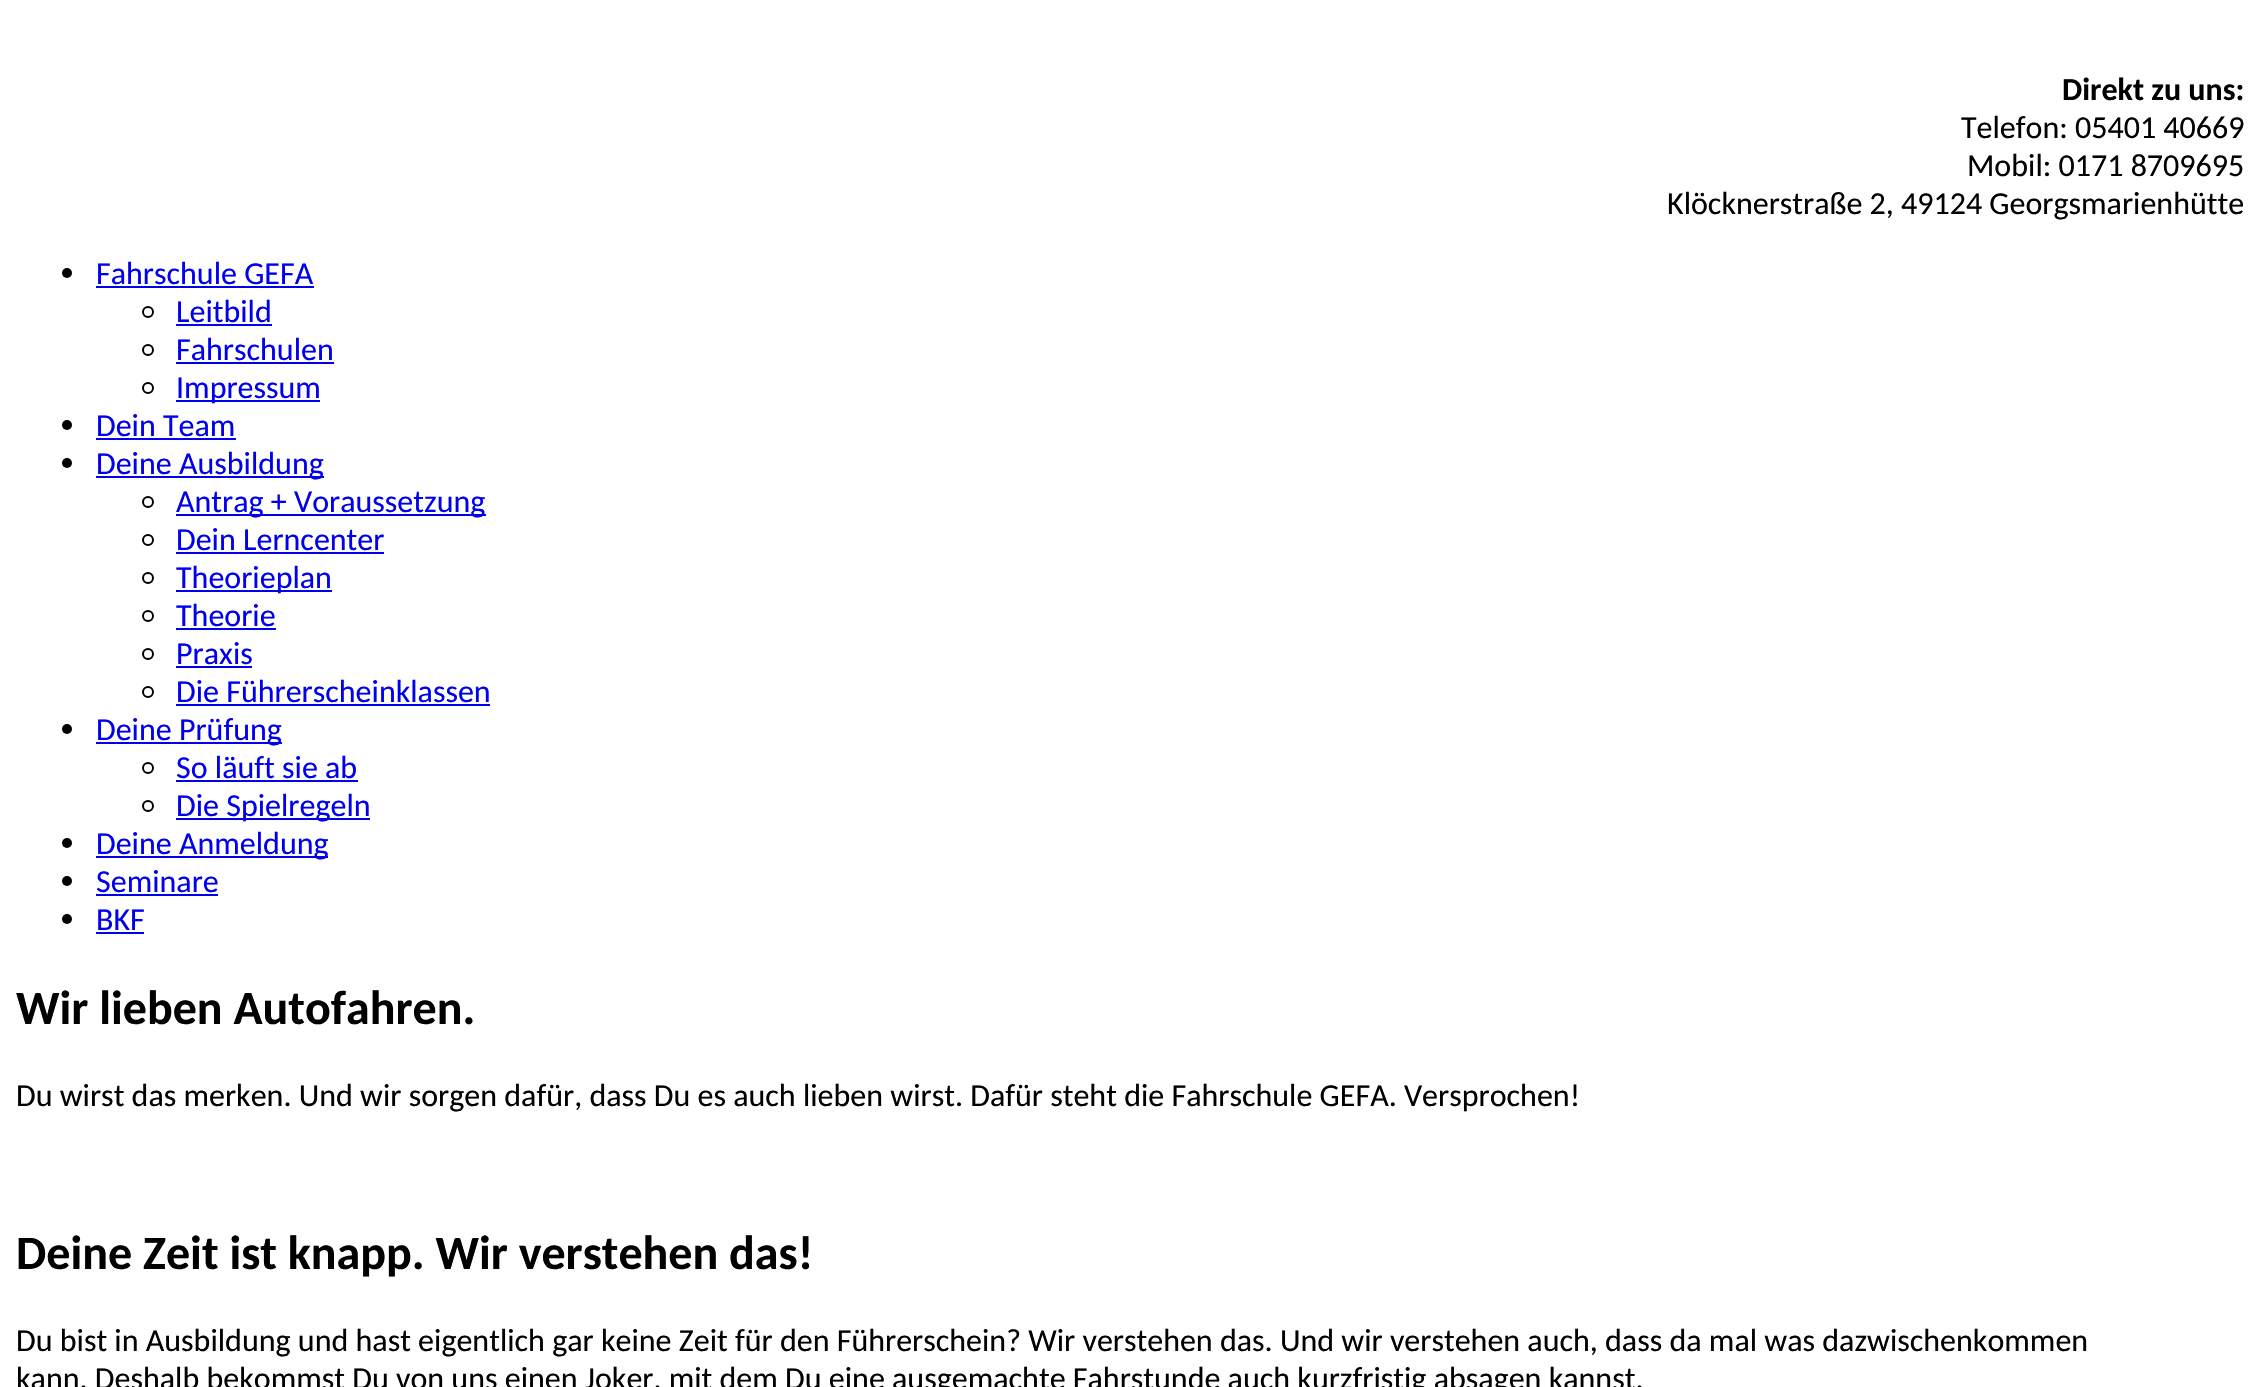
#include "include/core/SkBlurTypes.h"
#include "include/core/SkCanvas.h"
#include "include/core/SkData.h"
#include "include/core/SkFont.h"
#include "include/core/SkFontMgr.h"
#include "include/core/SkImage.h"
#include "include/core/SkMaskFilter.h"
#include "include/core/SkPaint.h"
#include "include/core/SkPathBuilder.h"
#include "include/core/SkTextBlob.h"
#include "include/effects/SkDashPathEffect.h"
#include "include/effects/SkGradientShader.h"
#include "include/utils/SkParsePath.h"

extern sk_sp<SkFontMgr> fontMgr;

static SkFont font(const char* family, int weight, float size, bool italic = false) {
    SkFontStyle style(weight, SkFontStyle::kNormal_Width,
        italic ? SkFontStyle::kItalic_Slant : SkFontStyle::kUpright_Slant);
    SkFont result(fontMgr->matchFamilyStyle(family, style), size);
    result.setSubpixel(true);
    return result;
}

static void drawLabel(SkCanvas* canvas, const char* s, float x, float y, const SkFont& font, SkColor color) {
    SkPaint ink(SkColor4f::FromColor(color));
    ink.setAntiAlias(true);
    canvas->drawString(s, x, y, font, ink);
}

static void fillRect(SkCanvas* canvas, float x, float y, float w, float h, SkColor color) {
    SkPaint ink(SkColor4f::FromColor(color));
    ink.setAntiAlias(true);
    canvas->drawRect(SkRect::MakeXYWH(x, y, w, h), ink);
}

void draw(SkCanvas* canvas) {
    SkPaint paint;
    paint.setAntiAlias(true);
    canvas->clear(0xFFFFFFFF);
    SkFont font1 = font("Carlito", 700, 32);
    drawLabel(canvas, "Direkt zu uns:", 2062, 100, font1, 0xFF000000);
    SkFont font2 = font("Carlito", 400, 32);
    drawLabel(canvas, "Telefon: 05401 40669", 1961, 138, font2, 0xFF000000);
    drawLabel(canvas, "Mobil: 0171 8709695", 1967, 176, font2, 0xFF000000);
    drawLabel(canvas, "Klöcknerstraße 2, 49124 Georgsmarienhütte", 1667, 214, font2, 0xFF000000);
    paint.setColor(0xFF000000);
    canvas->drawCircle(67, 273, 5, paint);
    drawLabel(canvas, "Fahrschule GEFA", 96, 284, font2, 0xFF0000EE);
    fillRect(canvas, 96, 286, 218, 2, 0xFF0000EE);
    paint.setStroke(true);
    paint.setStrokeWidth(2);
    canvas->drawCircle(148, 312, 5, paint);
    drawLabel(canvas, "Leitbild", 176, 322, font2, 0xFF0000EE);
    fillRect(canvas, 176, 324, 96, 2, 0xFF0000EE);
    canvas->drawCircle(148, 350, 5, paint);
    drawLabel(canvas, "Fahrschulen", 176, 360, font2, 0xFF0000EE);
    fillRect(canvas, 176, 362, 158, 2, 0xFF0000EE);
    canvas->drawCircle(148, 388, 5, paint);
    fillRect(canvas, 176, 400, 144, 2, 0xFF0000EE);
    drawLabel(canvas, "Impressum", 176, 398, font2, 0xFF0000EE);
    paint.setStroke(false);
    canvas->drawCircle(67, 425, 5, paint);
    drawLabel(canvas, "Dein Team", 96, 436, font2, 0xFF0000EE);
    fillRect(canvas, 96, 438, 140, 2, 0xFF0000EE);
    canvas->drawCircle(67, 463, 5, paint);
    fillRect(canvas, 96, 476, 228, 2, 0xFF0000EE);
    drawLabel(canvas, "Deine Ausbildung", 96, 474, font2, 0xFF0000EE);
    paint.setStroke(true);
    canvas->drawCircle(148, 502, 5, paint);
    fillRect(canvas, 176, 514, 310, 2, 0xFF0000EE);
    drawLabel(canvas, "Antrag + Voraussetzung", 176, 512, font2, 0xFF0000EE);
    canvas->drawCircle(148, 540, 5, paint);
    drawLabel(canvas, "Dein Lerncenter", 176, 550, font2, 0xFF0000EE);
    fillRect(canvas, 176, 552, 208, 2, 0xFF0000EE);
    canvas->drawCircle(148, 578, 5, paint);
    fillRect(canvas, 176, 590, 156, 2, 0xFF0000EE);
    drawLabel(canvas, "Theorieplan", 176, 588, font2, 0xFF0000EE);
    canvas->drawCircle(148, 616, 5, paint);
    drawLabel(canvas, "Theorie", 176, 626, font2, 0xFF0000EE);
    fillRect(canvas, 176, 628, 100, 2, 0xFF0000EE);
    canvas->drawCircle(148, 654, 5, paint);
    drawLabel(canvas, "Praxis", 176, 664, font2, 0xFF0000EE);
    fillRect(canvas, 176, 666, 76, 2, 0xFF0000EE);
    canvas->drawCircle(148, 692, 5, paint);
    drawLabel(canvas, "Die Führerscheinklassen", 176, 702, font2, 0xFF0000EE);
    fillRect(canvas, 176, 704, 314, 2, 0xFF0000EE);
    paint.setStroke(false);
    canvas->drawCircle(67, 729, 5, paint);
    fillRect(canvas, 96, 742, 186, 2, 0xFF0000EE);
    drawLabel(canvas, "Deine Prüfung", 96, 740, font2, 0xFF0000EE);
    paint.setStroke(true);
    canvas->drawCircle(148, 768, 5, paint);
    drawLabel(canvas, "So läuft sie ab", 176, 778, font2, 0xFF0000EE);
    fillRect(canvas, 176, 780, 182, 2, 0xFF0000EE);
    canvas->drawCircle(148, 806, 5, paint);
    fillRect(canvas, 176, 818, 194, 2, 0xFF0000EE);
    drawLabel(canvas, "Die Spielregeln", 176, 816, font2, 0xFF0000EE);
    paint.setStroke(false);
    canvas->drawCircle(67, 843, 5, paint);
    fillRect(canvas, 96, 856, 232, 2, 0xFF0000EE);
    drawLabel(canvas, "Deine Anmeldung", 96, 854, font2, 0xFF0000EE);
    canvas->drawCircle(67, 881, 5, paint);
    drawLabel(canvas, "Seminare", 96, 892, font2, 0xFF0000EE);
    fillRect(canvas, 96, 894, 122, 2, 0xFF0000EE);
    canvas->drawCircle(67, 919, 5, paint);
    drawLabel(canvas, "BKF", 96, 930, font2, 0xFF0000EE);
    fillRect(canvas, 96, 932, 48, 2, 0xFF0000EE);
    SkFont font3 = font("Carlito", 700, 48);
    drawLabel(canvas, "Wir lieben Autofahren.", 16, 1024, font3, 0xFF000000);
    drawLabel(canvas, "Du wirst das merken. Und wir sorgen dafür, dass Du es auch lieben wirst. Dafür steht die Fahrschule GEFA. Versprochen!", 16, 1106, font2, 0xFF000000);
    drawLabel(canvas, "Deine Zeit ist knapp. Wir verstehen das!", 16, 1269, font3, 0xFF000000);
    drawLabel(canvas, "Du bist in Ausbildung und hast eigentlich gar keine Zeit für den Führerschein? Wir verstehen das. Und wir verstehen auch, dass da mal was dazwischenkommen", 16, 1351, font2, 0xFF000000);
    drawLabel(canvas, "kann. Deshalb bekommst Du von uns einen Joker, mit dem Du eine ausgemachte Fahrstunde auch kurzfristig absagen kannst.", 16, 1389, font2, 0xFF000000);
}
